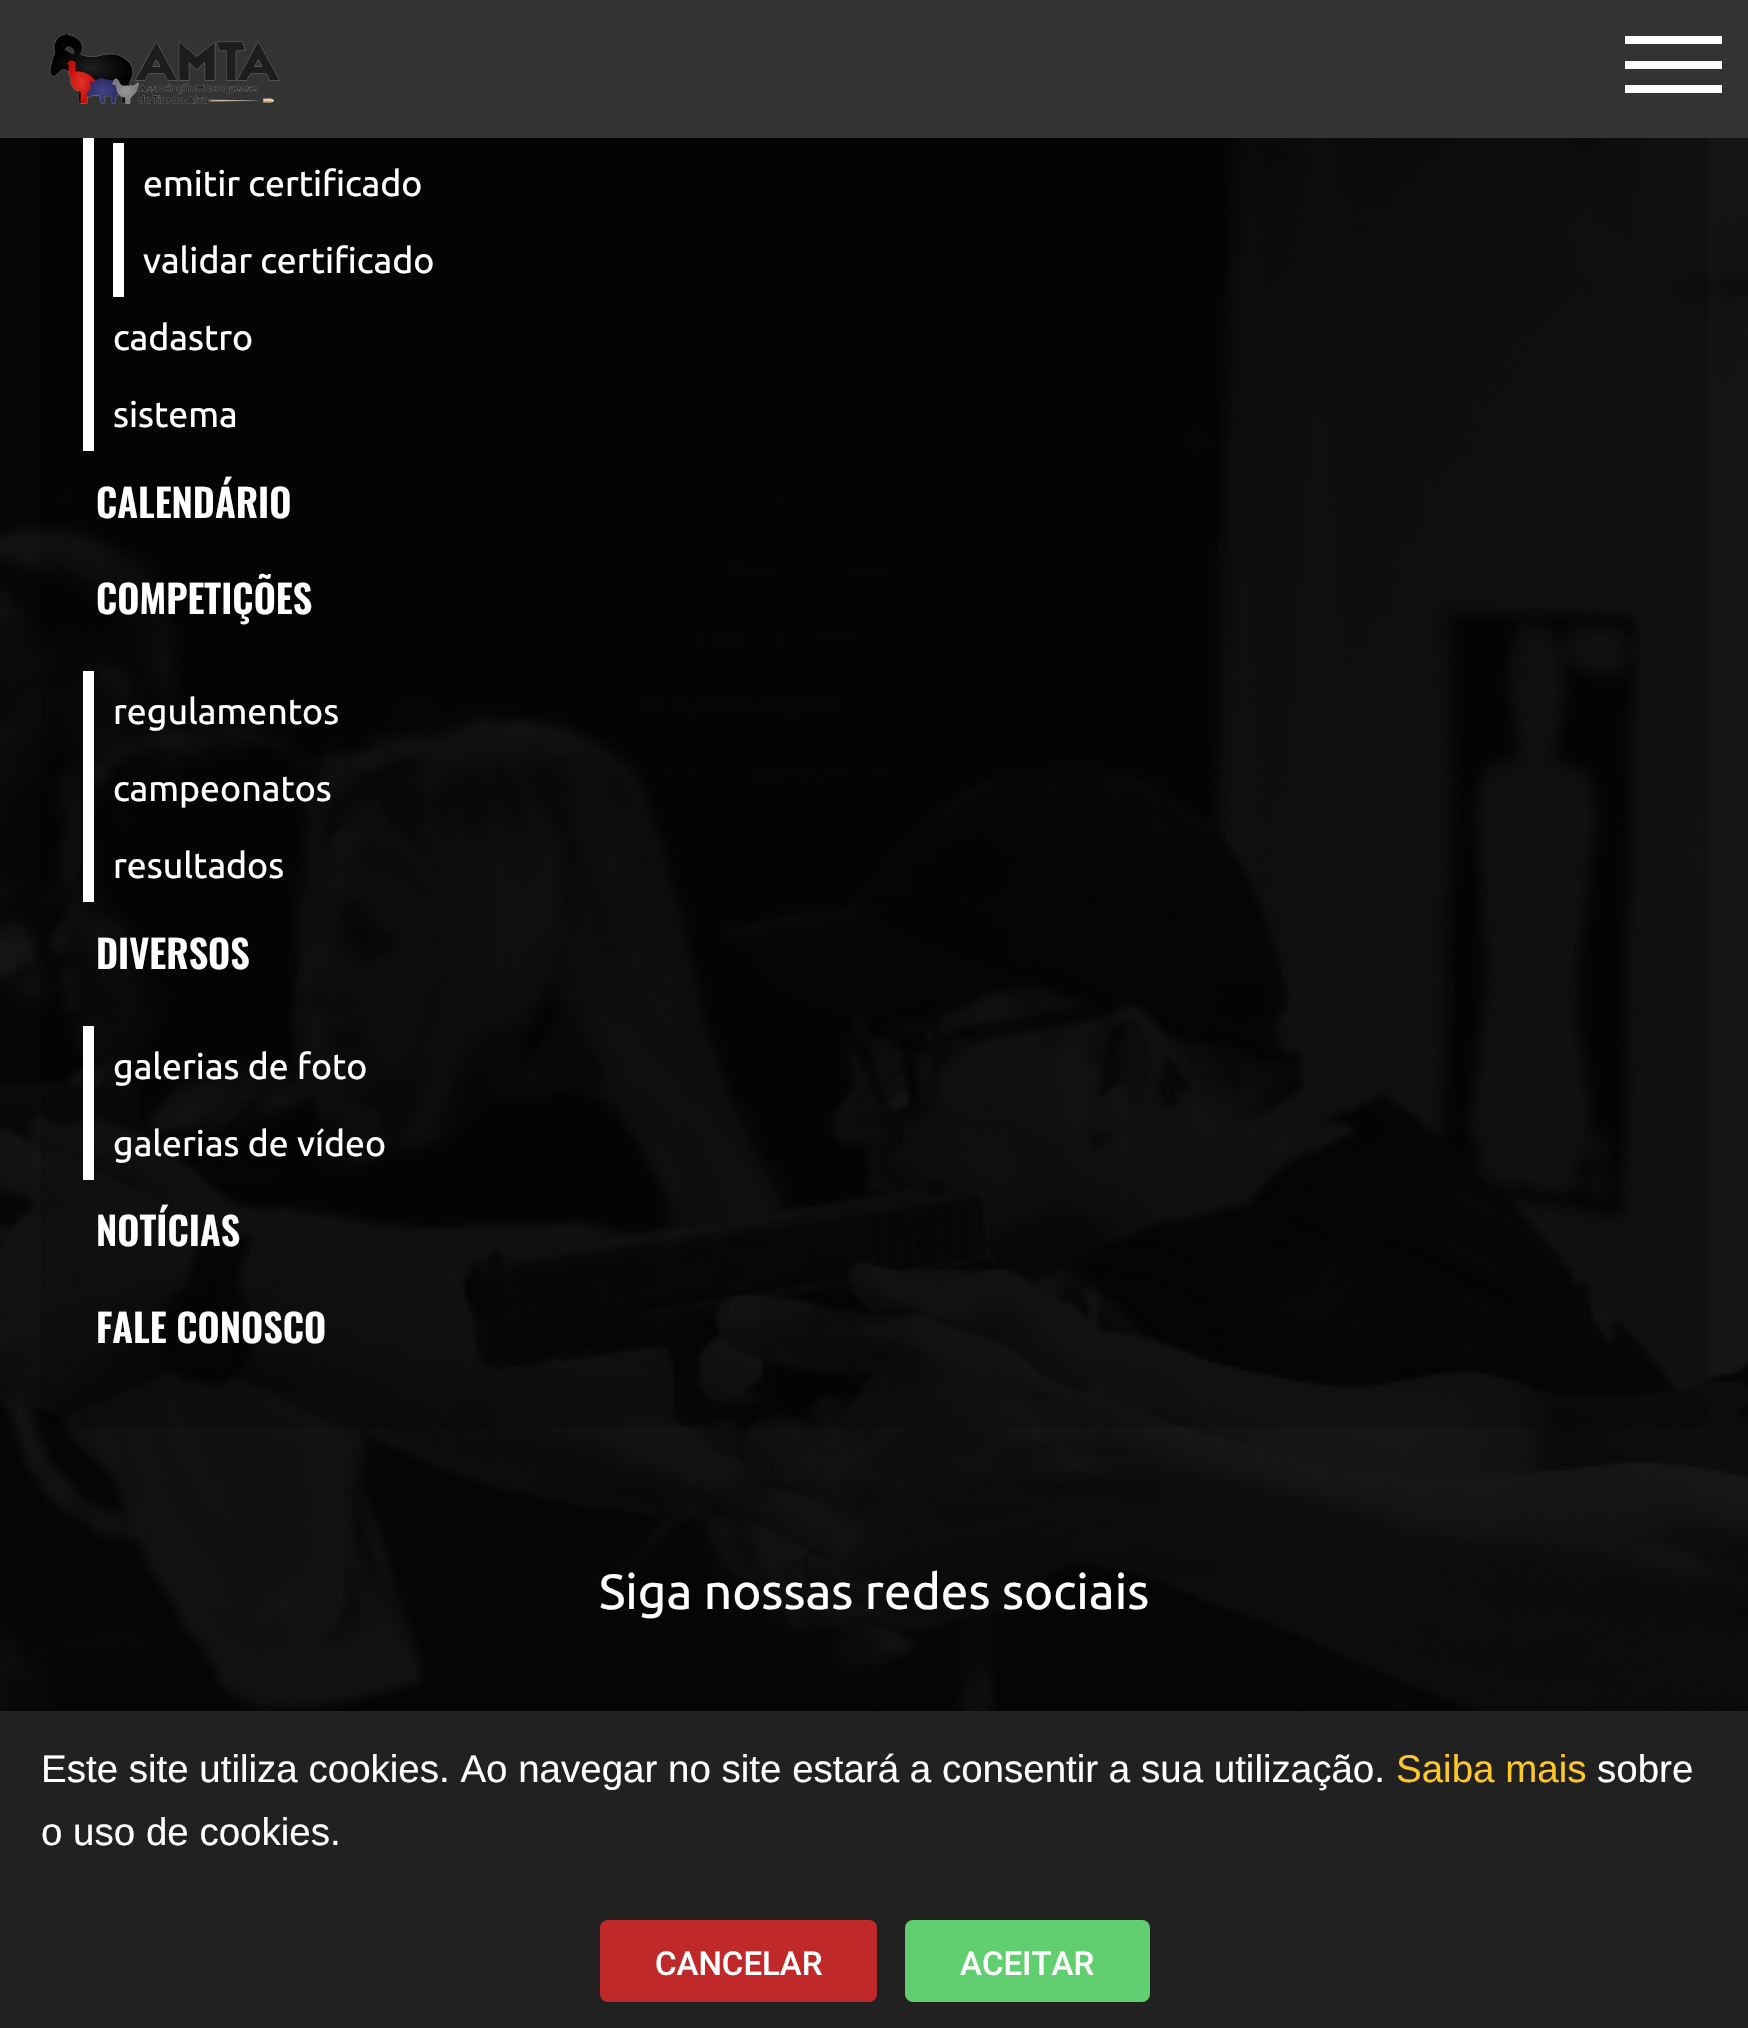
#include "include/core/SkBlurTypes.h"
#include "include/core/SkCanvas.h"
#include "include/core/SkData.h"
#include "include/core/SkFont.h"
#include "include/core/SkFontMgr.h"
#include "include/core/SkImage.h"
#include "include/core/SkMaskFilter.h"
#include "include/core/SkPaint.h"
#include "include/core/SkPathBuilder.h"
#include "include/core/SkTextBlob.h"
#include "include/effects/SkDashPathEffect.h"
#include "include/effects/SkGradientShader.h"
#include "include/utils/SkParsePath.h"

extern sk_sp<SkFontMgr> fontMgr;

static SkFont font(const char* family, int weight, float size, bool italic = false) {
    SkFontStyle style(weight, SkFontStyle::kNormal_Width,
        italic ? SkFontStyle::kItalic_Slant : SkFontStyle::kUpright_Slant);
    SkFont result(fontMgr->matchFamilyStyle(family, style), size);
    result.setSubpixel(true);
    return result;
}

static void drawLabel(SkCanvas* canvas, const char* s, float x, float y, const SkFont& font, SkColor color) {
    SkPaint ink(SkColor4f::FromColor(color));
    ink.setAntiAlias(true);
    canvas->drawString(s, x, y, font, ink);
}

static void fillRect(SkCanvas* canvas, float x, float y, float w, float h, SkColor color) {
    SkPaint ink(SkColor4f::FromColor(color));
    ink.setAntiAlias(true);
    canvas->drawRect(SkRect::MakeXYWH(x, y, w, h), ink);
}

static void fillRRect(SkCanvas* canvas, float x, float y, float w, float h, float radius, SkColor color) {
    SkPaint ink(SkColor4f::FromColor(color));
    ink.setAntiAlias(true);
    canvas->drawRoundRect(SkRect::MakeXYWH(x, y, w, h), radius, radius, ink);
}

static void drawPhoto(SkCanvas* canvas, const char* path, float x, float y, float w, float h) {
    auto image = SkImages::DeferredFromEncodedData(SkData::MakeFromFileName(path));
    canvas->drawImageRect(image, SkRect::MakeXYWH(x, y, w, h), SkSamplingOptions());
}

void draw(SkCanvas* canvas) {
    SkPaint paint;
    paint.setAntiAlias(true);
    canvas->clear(0xFF050505);
    fillRect(canvas, 0, 0, 1748, 138, 0xFF333333);
    drawPhoto(canvas, "assets/img1.png", 50, 34, 230, 70);
    fillRect(canvas, 1625, 61, 97, 8, 0xFFFFFFFF);
    fillRect(canvas, 1625, 36, 97, 8, 0xFFFFFFFF);
    fillRect(canvas, 1625, 85, 97, 8, 0xFFFFFFFF);
    drawPhoto(canvas, "assets/img2.png", 0, 138, 1748, 1573);
    fillRect(canvas, 41, 138, 1667, 1289, 0x33000000);
    fillRect(canvas, 83, 138, 11, 313, 0xFFFFFFFF);
    fillRect(canvas, 113, 143, 11, 154, 0xFFFFFFFF);
    SkFont font1 = font("Ubuntu", 400, 35.75f);
    drawLabel(canvas, "emitir certificado", 143, 196, font1, 0xFFFFFFFF);
    drawLabel(canvas, "validar certificado", 143, 273, font1, 0xFFFFFFFF);
    drawLabel(canvas, "cadastro", 113, 350, font1, 0xFFFFFFFF);
    drawLabel(canvas, "sistema", 113, 427, font1, 0xFFFFFFFF);
    SkFont font2 = font("Oswald", 600, 38.5f);
    drawLabel(canvas, "CALENDÁRIO", 96, 518, font2, 0xFFFFFFFF);
    drawLabel(canvas, "COMPETIÇÕES", 96, 614, font2, 0xFFFFFFFF);
    fillRect(canvas, 83, 671, 11, 231, 0xFFFFFFFF);
    drawLabel(canvas, "regulamentos", 113, 724, font1, 0xFFFFFFFF);
    drawLabel(canvas, "campeonatos", 113, 801, font1, 0xFFFFFFFF);
    drawLabel(canvas, "resultados", 113, 878, font1, 0xFFFFFFFF);
    drawLabel(canvas, "DIVERSOS", 96, 969, font2, 0xFFFFFFFF);
    fillRect(canvas, 83, 1026, 11, 154, 0xFFFFFFFF);
    drawLabel(canvas, "galerias de foto", 113, 1079, font1, 0xFFFFFFFF);
    drawLabel(canvas, "galerias de vídeo", 113, 1156, font1, 0xFFFFFFFF);
    drawLabel(canvas, "NOTÍCIAS", 96, 1246, font2, 0xFFFFFFFF);
    drawLabel(canvas, "FALE CONOSCO", 96, 1343, font2, 0xFFFFFFFF);
    SkFont font3 = font("Ubuntu", 400, 49.5f);
    drawLabel(canvas, "Siga nossas redes sociais", 599, 1609, font3, 0xFFFFFFFF);
    fillRect(canvas, 0, 1711, 1748, 317, 0xFF212121);
    SkFont font4 = font("Liberation Sans", 400, 38.5f);
    drawLabel(canvas, "Este site utiliza cookies. Ao navegar no site estará a consentir a sua utilização.", 41, 1782, font4, 0xFFFFFFFF);
    drawLabel(canvas, "Saiba mais", 1396, 1782, font4, 0xFFFEC726);
    drawLabel(canvas, "sobre", 1597, 1782, font4, 0xFFFFFFFF);
    drawLabel(canvas, "o uso de cookies.", 41, 1845, font4, 0xFFFFFFFF);
    fillRRect(canvas, 600, 1920, 277, 82, 8, 0xFFBF2929);
    SkFont font5 = font("Roboto", 500, 33);
    drawLabel(canvas, "CANCELAR", 655, 1975, font5, 0xFFFFFFFF);
    fillRRect(canvas, 905, 1920, 245, 82, 8, 0xFF61CE70);
    drawLabel(canvas, "ACEITAR", 960, 1975, font5, 0xFFFFFFFF);
}
